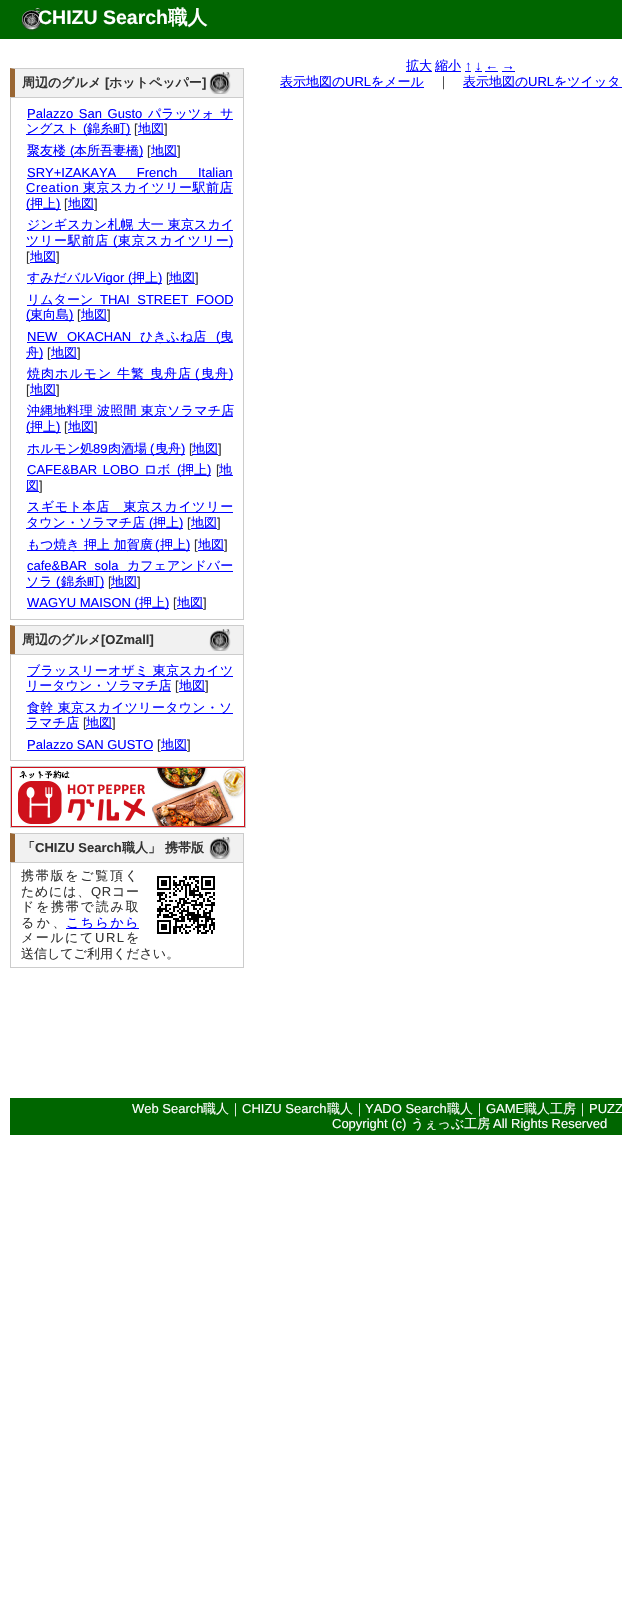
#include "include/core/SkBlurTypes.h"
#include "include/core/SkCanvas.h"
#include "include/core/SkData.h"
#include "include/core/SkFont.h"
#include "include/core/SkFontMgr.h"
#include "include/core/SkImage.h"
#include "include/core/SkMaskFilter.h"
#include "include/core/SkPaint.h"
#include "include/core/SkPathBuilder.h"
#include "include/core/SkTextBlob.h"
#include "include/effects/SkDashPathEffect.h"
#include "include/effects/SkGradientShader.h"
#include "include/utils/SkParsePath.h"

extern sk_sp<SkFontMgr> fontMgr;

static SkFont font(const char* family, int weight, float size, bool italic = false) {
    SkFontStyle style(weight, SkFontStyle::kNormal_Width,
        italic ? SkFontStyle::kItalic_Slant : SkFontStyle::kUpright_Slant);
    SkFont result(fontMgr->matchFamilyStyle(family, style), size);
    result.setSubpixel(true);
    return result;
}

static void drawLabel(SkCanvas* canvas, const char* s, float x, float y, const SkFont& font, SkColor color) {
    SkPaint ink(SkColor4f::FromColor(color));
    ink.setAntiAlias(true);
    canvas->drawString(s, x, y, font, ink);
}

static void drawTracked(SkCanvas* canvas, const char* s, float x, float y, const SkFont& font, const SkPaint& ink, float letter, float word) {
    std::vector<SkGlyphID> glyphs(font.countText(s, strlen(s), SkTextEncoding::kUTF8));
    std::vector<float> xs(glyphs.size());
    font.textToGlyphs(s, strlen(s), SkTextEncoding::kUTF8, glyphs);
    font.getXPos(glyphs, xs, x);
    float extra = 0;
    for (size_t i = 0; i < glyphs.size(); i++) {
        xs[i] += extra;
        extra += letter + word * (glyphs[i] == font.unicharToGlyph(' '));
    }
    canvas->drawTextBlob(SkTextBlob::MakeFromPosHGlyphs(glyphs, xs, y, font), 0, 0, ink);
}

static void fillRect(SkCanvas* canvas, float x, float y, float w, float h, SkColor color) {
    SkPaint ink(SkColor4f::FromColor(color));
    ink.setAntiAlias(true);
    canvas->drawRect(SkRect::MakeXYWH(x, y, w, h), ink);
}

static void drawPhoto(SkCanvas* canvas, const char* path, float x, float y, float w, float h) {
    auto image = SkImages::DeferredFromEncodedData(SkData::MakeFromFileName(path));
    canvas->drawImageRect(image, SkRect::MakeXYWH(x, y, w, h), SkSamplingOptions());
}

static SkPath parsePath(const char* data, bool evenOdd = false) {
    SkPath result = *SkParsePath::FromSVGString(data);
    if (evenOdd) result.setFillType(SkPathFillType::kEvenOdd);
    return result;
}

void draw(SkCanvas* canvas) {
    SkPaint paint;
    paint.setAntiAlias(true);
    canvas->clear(0xFFFFFFFF);
    fillRect(canvas, 0, 0, 622, 39, 0xFF006600);
    drawPhoto(canvas, "assets/img1.png", 21, 8, 21, 24);
    SkFont font1 = font("Liberation Sans", 700, 19.5f);
    drawLabel(canvas, "CHIZU Search", 38, 24, font1, 0xFFFFFFFF);
    SkFont font2 = font("WenQuanYi Zen Hei", 700, 19.5f);
    drawLabel(canvas, "職人", 168, 24, font2, 0xFFFFFFFF);
    fillRect(canvas, 10, 68, 233, 29, 0xFFF1F1F1);
    paint.setColor(0xFFCCCCCC);
    canvas->drawPath(parsePath("M10 68H244L243 69H15Z"), paint);
    fillRect(canvas, 243, 68, 1, 29, 0xFFCCCCCC);
    paint.setColor(0xFF996633);
    canvas->drawPath(parsePath("M10 97V68L15 69V97Z"), paint);
    drawPhoto(canvas, "assets/img2.png", 209, 72, 22, 22);
    SkFont font3 = font("WenQuanYi Zen Hei", 700, 13);
    drawLabel(canvas, "周辺のグルメ", 22, 87, font3, 0xFF333333);
    SkFont font4 = font("Liberation Sans", 700, 13);
    drawLabel(canvas, "[", 105, 87, font4, 0xFF333333);
    drawLabel(canvas, "ホットペッパー", 109, 87, font3, 0xFF333333);
    drawLabel(canvas, "]", 202, 87, font4, 0xFF333333);
    paint.setStroke(true);
    paint.setStrokeWidth(1);
    paint.setColor(0xFFCCCCCC);
    canvas->drawRect(SkRect::MakeXYWH(10.5f, 97.5f, 233, 522), paint);
    SkFont font5 = font("Liberation Sans", 400, 13);
    paint.setStroke(false);
    paint.setColor(0xFF0000FF);
    drawTracked(canvas, "Palazzo San Gusto", 27, 118, font5, paint, 0, 2);
    fillRect(canvas, 27, 119, 206, 1, 0xFF0000FF);
    SkFont font6 = font("WenQuanYi Zen Hei", 500, 13);
    drawLabel(canvas, "パラッツォ", 148, 118, font6, 0xFF0000FF);
    drawLabel(canvas, "サ", 220, 118, font6, 0xFF0000FF);
    fillRect(canvas, 26, 134, 105, 1, 0xFF0000FF);
    drawLabel(canvas, "ングスト", 26, 133, font6, 0xFF0000FF);
    drawLabel(canvas, "(", 83, 133, font5, 0xFF0000FF);
    drawLabel(canvas, "錦糸町", 87, 133, font6, 0xFF0000FF);
    drawLabel(canvas, ")", 126, 133, font5, 0xFF0000FF);
    drawLabel(canvas, "[", 134, 133, font5, 0xFF333333);
    fillRect(canvas, 138, 134, 26, 1, 0xFF0000FF);
    drawLabel(canvas, "地図", 138, 133, font6, 0xFF0000FF);
    drawLabel(canvas, "]", 164, 133, font5, 0xFF333333);
    fillRect(canvas, 27, 156, 116, 1, 0xFF0000FF);
    drawLabel(canvas, "聚友楼", 27, 155, font6, 0xFF0000FF);
    drawLabel(canvas, "(", 70, 155, font5, 0xFF0000FF);
    drawLabel(canvas, "本所吾妻橋", 74, 155, font6, 0xFF0000FF);
    drawLabel(canvas, ")", 139, 155, font5, 0xFF0000FF);
    drawLabel(canvas, "[", 147, 155, font5, 0xFF333333);
    fillRect(canvas, 151, 156, 26, 1, 0xFF0000FF);
    drawLabel(canvas, "地図", 151, 155, font6, 0xFF0000FF);
    drawLabel(canvas, "]", 177, 155, font5, 0xFF333333);
    drawTracked(canvas, "SRY+IZAKAYA French Italian", 27, 177, font5, paint, 0, 17);
    fillRect(canvas, 27, 178, 206, 1, 0xFF0000FF);
    drawTracked(canvas, "Creation", 26, 192, font5, paint, 0.5f, 0);
    fillRect(canvas, 26, 193, 207, 1, 0xFF0000FF);
    drawTracked(canvas, "東京スカイツリー駅前店", 83, 192, font6, paint, 0.5f, 0);
    fillRect(canvas, 26, 209, 35, 1, 0xFF0000FF);
    drawLabel(canvas, "(", 26, 208, font5, 0xFF0000FF);
    drawLabel(canvas, "押上", 30, 208, font6, 0xFF0000FF);
    drawLabel(canvas, ")", 56, 208, font5, 0xFF0000FF);
    drawLabel(canvas, "[", 64, 208, font5, 0xFF333333);
    fillRect(canvas, 68, 209, 26, 1, 0xFF0000FF);
    drawLabel(canvas, "地図", 68, 208, font6, 0xFF0000FF);
    drawLabel(canvas, "]", 94, 208, font5, 0xFF333333);
    fillRect(canvas, 27, 230, 206, 1, 0xFF0000FF);
    drawTracked(canvas, "ジンギスカン札幌 大一 東京スカイ", 27, 229, font6, paint, 0.1f, 0);
    fillRect(canvas, 26, 246, 207, 1, 0xFF0000FF);
    drawTracked(canvas, "ツリー駅前店", 26, 245, font6, paint, 0.75f, 0);
    drawTracked(canvas, "(", 113, 245, font5, paint, 0.75f, 0);
    drawTracked(canvas, "東京スカイツリー", 118, 245, font6, paint, 0.75f, 0);
    drawTracked(canvas, ")", 229, 245, font5, paint, 0.75f, 0);
    drawLabel(canvas, "[", 26, 261, font5, 0xFF333333);
    fillRect(canvas, 30, 262, 26, 1, 0xFF0000FF);
    drawLabel(canvas, "地図", 30, 261, font6, 0xFF0000FF);
    drawLabel(canvas, "]", 56, 261, font5, 0xFF333333);
    fillRect(canvas, 27, 283, 135, 1, 0xFF0000FF);
    drawLabel(canvas, "すみだバル", 27, 282, font6, 0xFF0000FF);
    drawLabel(canvas, "Vigor (", 94, 282, font5, 0xFF0000FF);
    drawLabel(canvas, "押上", 132, 282, font6, 0xFF0000FF);
    drawLabel(canvas, ")", 158, 282, font5, 0xFF0000FF);
    drawLabel(canvas, "[", 166, 282, font5, 0xFF333333);
    fillRect(canvas, 169, 283, 26, 1, 0xFF0000FF);
    drawLabel(canvas, "地図", 169, 282, font6, 0xFF0000FF);
    drawLabel(canvas, "]", 195, 282, font5, 0xFF333333);
    fillRect(canvas, 27, 305, 206, 1, 0xFF0000FF);
    drawLabel(canvas, "リムターン", 27, 304, font6, 0xFF0000FF);
    drawTracked(canvas, "THAI STREET FOOD", 100, 304, font5, paint, 0, 4);
    fillRect(canvas, 26, 320, 48, 1, 0xFF0000FF);
    drawLabel(canvas, "(", 26, 319, font5, 0xFF0000FF);
    drawLabel(canvas, "東向島", 30, 319, font6, 0xFF0000FF);
    drawLabel(canvas, ")", 69, 319, font5, 0xFF0000FF);
    drawLabel(canvas, "[", 77, 319, font5, 0xFF333333);
    fillRect(canvas, 81, 320, 26, 1, 0xFF0000FF);
    drawLabel(canvas, "地図", 81, 319, font6, 0xFF0000FF);
    drawLabel(canvas, "]", 107, 319, font5, 0xFF333333);
    drawTracked(canvas, "NEW OKACHAN", 27, 341, font5, paint, 0, 6);
    fillRect(canvas, 27, 342, 206, 1, 0xFF0000FF);
    drawLabel(canvas, "ひきふね店", 140, 341, font6, 0xFF0000FF);
    drawLabel(canvas, "(", 216, 341, font5, 0xFF0000FF);
    drawLabel(canvas, "曳", 220, 341, font6, 0xFF0000FF);
    fillRect(canvas, 26, 358, 17, 1, 0xFF0000FF);
    drawLabel(canvas, "舟", 26, 357, font6, 0xFF0000FF);
    drawLabel(canvas, ")", 39, 357, font5, 0xFF0000FF);
    drawLabel(canvas, "[", 47, 357, font5, 0xFF333333);
    fillRect(canvas, 51, 358, 26, 1, 0xFF0000FF);
    drawLabel(canvas, "地図", 51, 357, font6, 0xFF0000FF);
    drawLabel(canvas, "]", 77, 357, font5, 0xFF333333);
    fillRect(canvas, 27, 379, 206, 1, 0xFF0000FF);
    drawTracked(canvas, "焼肉ホルモン 牛繁 曳舟店", 27, 378, font6, paint, 1, 0);
    drawTracked(canvas, "(", 195, 378, font5, paint, 1, 0);
    drawTracked(canvas, "曳舟", 201, 378, font6, paint, 1, 0);
    drawTracked(canvas, ")", 229, 378, font5, paint, 1, 0);
    drawLabel(canvas, "[", 26, 394, font5, 0xFF333333);
    fillRect(canvas, 30, 395, 26, 1, 0xFF0000FF);
    drawLabel(canvas, "地図", 30, 394, font6, 0xFF0000FF);
    drawLabel(canvas, "]", 56, 394, font5, 0xFF333333);
    fillRect(canvas, 27, 416, 206, 1, 0xFF0000FF);
    drawTracked(canvas, "沖縄地料理 波照間 東京ソラマチ店", 27, 415, font6, paint, 0.2f, 0);
    fillRect(canvas, 26, 432, 35, 1, 0xFF0000FF);
    drawLabel(canvas, "(", 26, 431, font5, 0xFF0000FF);
    drawLabel(canvas, "押上", 30, 431, font6, 0xFF0000FF);
    drawLabel(canvas, ")", 56, 431, font5, 0xFF0000FF);
    drawLabel(canvas, "[", 64, 431, font5, 0xFF333333);
    fillRect(canvas, 68, 432, 26, 1, 0xFF0000FF);
    drawLabel(canvas, "地図", 68, 431, font6, 0xFF0000FF);
    drawLabel(canvas, "]", 94, 431, font5, 0xFF333333);
    fillRect(canvas, 27, 454, 158, 1, 0xFF0000FF);
    drawLabel(canvas, "ホルモン処", 27, 453, font6, 0xFF0000FF);
    drawLabel(canvas, "89", 93, 453, font5, 0xFF0000FF);
    drawLabel(canvas, "肉酒場", 108, 453, font6, 0xFF0000FF);
    drawLabel(canvas, "(", 150, 453, font5, 0xFF0000FF);
    drawLabel(canvas, "曳舟", 155, 453, font6, 0xFF0000FF);
    drawLabel(canvas, ")", 181, 453, font5, 0xFF0000FF);
    drawLabel(canvas, "[", 189, 453, font5, 0xFF333333);
    fillRect(canvas, 192, 454, 26, 1, 0xFF0000FF);
    drawLabel(canvas, "地図", 192, 453, font6, 0xFF0000FF);
    drawLabel(canvas, "]", 218, 453, font5, 0xFF333333);
    drawTracked(canvas, "CAFE&BAR LOBO", 27, 474, font5, paint, 0, 2);
    fillRect(canvas, 27, 475, 184, 1, 0xFF0000FF);
    drawLabel(canvas, "ロボ", 144, 474, font6, 0xFF0000FF);
    drawLabel(canvas, "(", 177, 474, font5, 0xFF0000FF);
    drawLabel(canvas, "押上", 181, 474, font6, 0xFF0000FF);
    drawLabel(canvas, ")", 207, 474, font5, 0xFF0000FF);
    drawLabel(canvas, "[", 216, 474, font5, 0xFF333333);
    fillRect(canvas, 219, 475, 14, 1, 0xFF0000FF);
    drawLabel(canvas, "地", 219, 474, font6, 0xFF0000FF);
    fillRect(canvas, 26, 491, 13, 1, 0xFF0000FF);
    drawLabel(canvas, "図", 26, 490, font6, 0xFF0000FF);
    drawLabel(canvas, "]", 39, 490, font5, 0xFF333333);
    fillRect(canvas, 27, 512, 206, 1, 0xFF0000FF);
    drawTracked(canvas, "スギモト本店　東京スカイツリー", 27, 511, font6, paint, 0.6f, 0);
    fillRect(canvas, 26, 528, 157, 1, 0xFF0000FF);
    drawLabel(canvas, "タウン・ソラマチ店", 26, 527, font6, 0xFF0000FF);
    drawLabel(canvas, "(", 149, 527, font5, 0xFF0000FF);
    drawLabel(canvas, "押上", 153, 527, font6, 0xFF0000FF);
    drawLabel(canvas, ")", 179, 527, font5, 0xFF0000FF);
    drawLabel(canvas, "[", 187, 527, font5, 0xFF333333);
    fillRect(canvas, 191, 528, 26, 1, 0xFF0000FF);
    drawLabel(canvas, "地図", 191, 527, font6, 0xFF0000FF);
    drawLabel(canvas, "]", 217, 527, font5, 0xFF333333);
    fillRect(canvas, 27, 550, 163, 1, 0xFF0000FF);
    drawLabel(canvas, "もつ焼き 押上 加賀廣", 27, 549, font6, 0xFF0000FF);
    drawLabel(canvas, "(", 155, 549, font5, 0xFF0000FF);
    drawLabel(canvas, "押上", 160, 549, font6, 0xFF0000FF);
    drawLabel(canvas, ")", 186, 549, font5, 0xFF0000FF);
    drawLabel(canvas, "[", 194, 549, font5, 0xFF333333);
    fillRect(canvas, 198, 550, 26, 1, 0xFF0000FF);
    drawLabel(canvas, "地図", 198, 549, font6, 0xFF0000FF);
    drawLabel(canvas, "]", 224, 549, font5, 0xFF333333);
    drawTracked(canvas, "cafe&BAR sola", 27, 570, font5, paint, 0, 4);
    fillRect(canvas, 27, 571, 206, 1, 0xFF0000FF);
    drawLabel(canvas, "カフェアンドバー", 127, 570, font6, 0xFF0000FF);
    fillRect(canvas, 26, 587, 78, 1, 0xFF0000FF);
    drawLabel(canvas, "ソラ", 26, 586, font6, 0xFF0000FF);
    drawLabel(canvas, "(", 56, 586, font5, 0xFF0000FF);
    drawLabel(canvas, "錦糸町", 61, 586, font6, 0xFF0000FF);
    drawLabel(canvas, ")", 100, 586, font5, 0xFF0000FF);
    drawLabel(canvas, "[", 108, 586, font5, 0xFF333333);
    fillRect(canvas, 111, 587, 26, 1, 0xFF0000FF);
    drawLabel(canvas, "地図", 111, 586, font6, 0xFF0000FF);
    drawLabel(canvas, "]", 137, 586, font5, 0xFF333333);
    fillRect(canvas, 27, 608, 142, 1, 0xFF0000FF);
    drawLabel(canvas, "WAGYU MAISON (", 27, 607, font5, 0xFF0000FF);
    drawLabel(canvas, "押上", 139, 607, font6, 0xFF0000FF);
    drawLabel(canvas, ")", 165, 607, font5, 0xFF0000FF);
    drawLabel(canvas, "[", 173, 607, font5, 0xFF333333);
    fillRect(canvas, 177, 608, 26, 1, 0xFF0000FF);
    drawLabel(canvas, "地図", 177, 607, font6, 0xFF0000FF);
    drawLabel(canvas, "]", 203, 607, font5, 0xFF333333);
    fillRect(canvas, 10, 625, 233, 29, 0xFFF1F1F1);
    paint.setColor(0xFFCCCCCC);
    canvas->drawPath(parsePath("M10 625H244L243 626H15Z"), paint);
    fillRect(canvas, 243, 625, 1, 29, 0xFFCCCCCC);
    paint.setColor(0xFF996633);
    canvas->drawPath(parsePath("M10 654V625L15 626V654Z"), paint);
    drawPhoto(canvas, "assets/img2.png", 209, 629, 22, 22);
    drawLabel(canvas, "周辺のグルメ", 22, 644, font3, 0xFF333333);
    drawLabel(canvas, "[OZmall]", 101, 644, font4, 0xFF333333);
    paint.setStroke(true);
    paint.setColor(0xFFCCCCCC);
    canvas->drawRect(SkRect::MakeXYWH(10.5f, 654.5f, 233, 106), paint);
    fillRect(canvas, 27, 676, 206, 1, 0xFF0000FF);
    paint.setStroke(false);
    paint.setColor(0xFF0000FF);
    drawTracked(canvas, "ブラッスリーオザミ 東京スカイツ", 27, 675, font6, paint, 0.25f, 0);
    fillRect(canvas, 26, 691, 145, 1, 0xFF0000FF);
    drawLabel(canvas, "リータウン・ソラマチ店", 26, 690, font6, 0xFF0000FF);
    drawLabel(canvas, "[", 175, 690, font5, 0xFF333333);
    fillRect(canvas, 179, 691, 26, 1, 0xFF0000FF);
    drawLabel(canvas, "地図", 179, 690, font6, 0xFF0000FF);
    drawLabel(canvas, "]", 205, 690, font5, 0xFF333333);
    fillRect(canvas, 27, 713, 206, 1, 0xFF0000FF);
    drawTracked(canvas, "食幹 東京スカイツリータウン・ソ", 27, 712, font6, paint, 0.25f, 0);
    fillRect(canvas, 26, 728, 53, 1, 0xFF0000FF);
    drawLabel(canvas, "ラマチ店", 26, 727, font6, 0xFF0000FF);
    drawLabel(canvas, "[", 83, 727, font5, 0xFF333333);
    fillRect(canvas, 86, 728, 26, 1, 0xFF0000FF);
    drawLabel(canvas, "地図", 86, 727, font6, 0xFF0000FF);
    drawLabel(canvas, "]", 112, 727, font5, 0xFF333333);
    drawLabel(canvas, "Palazzo SAN GUSTO", 27, 749, font5, 0xFF0000FF);
    fillRect(canvas, 27, 750, 126, 1, 0xFF0000FF);
    drawLabel(canvas, "[", 157, 749, font5, 0xFF333333);
    fillRect(canvas, 161, 750, 26, 1, 0xFF0000FF);
    drawLabel(canvas, "地図", 161, 749, font6, 0xFF0000FF);
    drawLabel(canvas, "]", 187, 749, font5, 0xFF333333);
    paint.setStroke(true);
    paint.setColor(0xFFCCCCCC);
    canvas->drawRect(SkRect::MakeXYWH(10.5f, 766.5f, 235, 61), paint);
    drawPhoto(canvas, "assets/img3.png", 11, 767, 234, 60);
    fillRect(canvas, 10, 833, 233, 29, 0xFFF1F1F1);
    paint.setStroke(false);
    canvas->drawPath(parsePath("M10 833H244L243 834H15Z"), paint);
    fillRect(canvas, 243, 833, 1, 29, 0xFFCCCCCC);
    paint.setColor(0xFF996633);
    canvas->drawPath(parsePath("M10 862V833L15 834V862Z"), paint);
    drawPhoto(canvas, "assets/img2.png", 209, 837, 22, 22);
    drawLabel(canvas, "「", 22, 852, font3, 0xFF333333);
    drawLabel(canvas, "CHIZU Search", 35, 852, font4, 0xFF333333);
    drawLabel(canvas, "職人」 携帯版", 122, 852, font3, 0xFF333333);
    paint.setStroke(true);
    paint.setColor(0xFFCCCCCC);
    canvas->drawRect(SkRect::MakeXYWH(10.5f, 862.5f, 233, 105), paint);
    paint.setStroke(false);
    paint.setColor(0xFF333333);
    drawTracked(canvas, "携帯版をご覧頂く", 21, 880, font6, paint, 1.75f, 0);
    drawPhoto(canvas, "assets/img4.png", 157, 876, 58, 58);
    drawTracked(canvas, "ためには、", 21, 896, font6, paint, 0.75f, 0);
    drawTracked(canvas, "QR", 91, 896, font5, paint, 0.75f, 0);
    drawTracked(canvas, "コー", 112, 896, font6, paint, 0.75f, 0);
    drawTracked(canvas, "ドを携帯で読み取", 21, 911, font6, paint, 1.75f, 0);
    drawTracked(canvas, "るか、", 21, 927, font6, paint, 2.5f, 0);
    fillRect(canvas, 66, 928, 73, 1, 0xFF0000FF);
    paint.setColor(0xFF0000FF);
    drawTracked(canvas, "こちらから", 66, 927, font6, paint, 1.5f, 0);
    paint.setColor(0xFF333333);
    drawTracked(canvas, "メールにて", 21, 942, font6, paint, 1.5f, 0);
    drawTracked(canvas, "URL", 95, 942, font5, paint, 1.5f, 0);
    drawTracked(canvas, "を", 126, 942, font6, paint, 1.5f, 0);
    drawLabel(canvas, "送信してご利用ください。", 21, 958, font6, 0xFF333333);
    fillRect(canvas, 406, 71, 26, 1, 0xFF0000FF);
    drawLabel(canvas, "拡大", 406, 70, font6, 0xFF0000FF);
    fillRect(canvas, 435, 71, 26, 1, 0xFF0000FF);
    drawLabel(canvas, "縮小", 435, 70, font6, 0xFF0000FF);
    drawLabel(canvas, "↑ ↓ ← →", 465, 70, font5, 0xFF0000FF);
    fillRect(canvas, 465, 71, 6, 1, 0xFF0000FF);
    fillRect(canvas, 475, 71, 7, 1, 0xFF0000FF);
    fillRect(canvas, 485, 71, 13, 1, 0xFF0000FF);
    fillRect(canvas, 502, 71, 13, 1, 0xFF0000FF);
    fillRect(canvas, 280, 87, 144, 1, 0xFF0000FF);
    drawLabel(canvas, "表示地図の", 280, 86, font6, 0xFF0000FF);
    drawLabel(canvas, "URL", 345, 86, font5, 0xFF0000FF);
    drawLabel(canvas, "をメール", 371, 86, font6, 0xFF0000FF);
    drawLabel(canvas, "｜", 437, 86, font6, 0xFF333333);
    fillRect(canvas, 463, 87, 159, 1, 0xFF0000FF);
    drawLabel(canvas, "表示地図の", 463, 86, font6, 0xFF0000FF);
    drawLabel(canvas, "URL", 528, 86, font5, 0xFF0000FF);
    drawLabel(canvas, "をツイッタ", 554, 86, font6, 0xFF0000FF);
    fillRect(canvas, 10, 1098, 612, 37, 0xFF006600);
    drawLabel(canvas, "Web Search", 132, 1113, font5, 0xFFFFFFFF);
    drawLabel(canvas, "職人｜", 203, 1113, font6, 0xFFFFFFFF);
    drawLabel(canvas, "CHIZU Search", 242, 1113, font5, 0xFFFFFFFF);
    drawLabel(canvas, "職人｜", 327, 1113, font6, 0xFFFFFFFF);
    drawLabel(canvas, "YADO Search", 365, 1113, font5, 0xFFFFFFFF);
    drawLabel(canvas, "職人｜", 447, 1113, font6, 0xFFFFFFFF);
    drawLabel(canvas, "GAME", 486, 1113, font5, 0xFFFFFFFF);
    drawLabel(canvas, "職人工房｜", 524, 1113, font6, 0xFFFFFFFF);
    drawLabel(canvas, "PUZZ", 589, 1113, font5, 0xFFFFFFFF);
    drawLabel(canvas, "Copyright (c)", 332, 1128, font5, 0xFFFFFFFF);
    drawLabel(canvas, "うぇっぶ工房", 411, 1128, font6, 0xFFFFFFFF);
    drawLabel(canvas, "All Rights Reserved", 493, 1128, font5, 0xFFFFFFFF);
}
